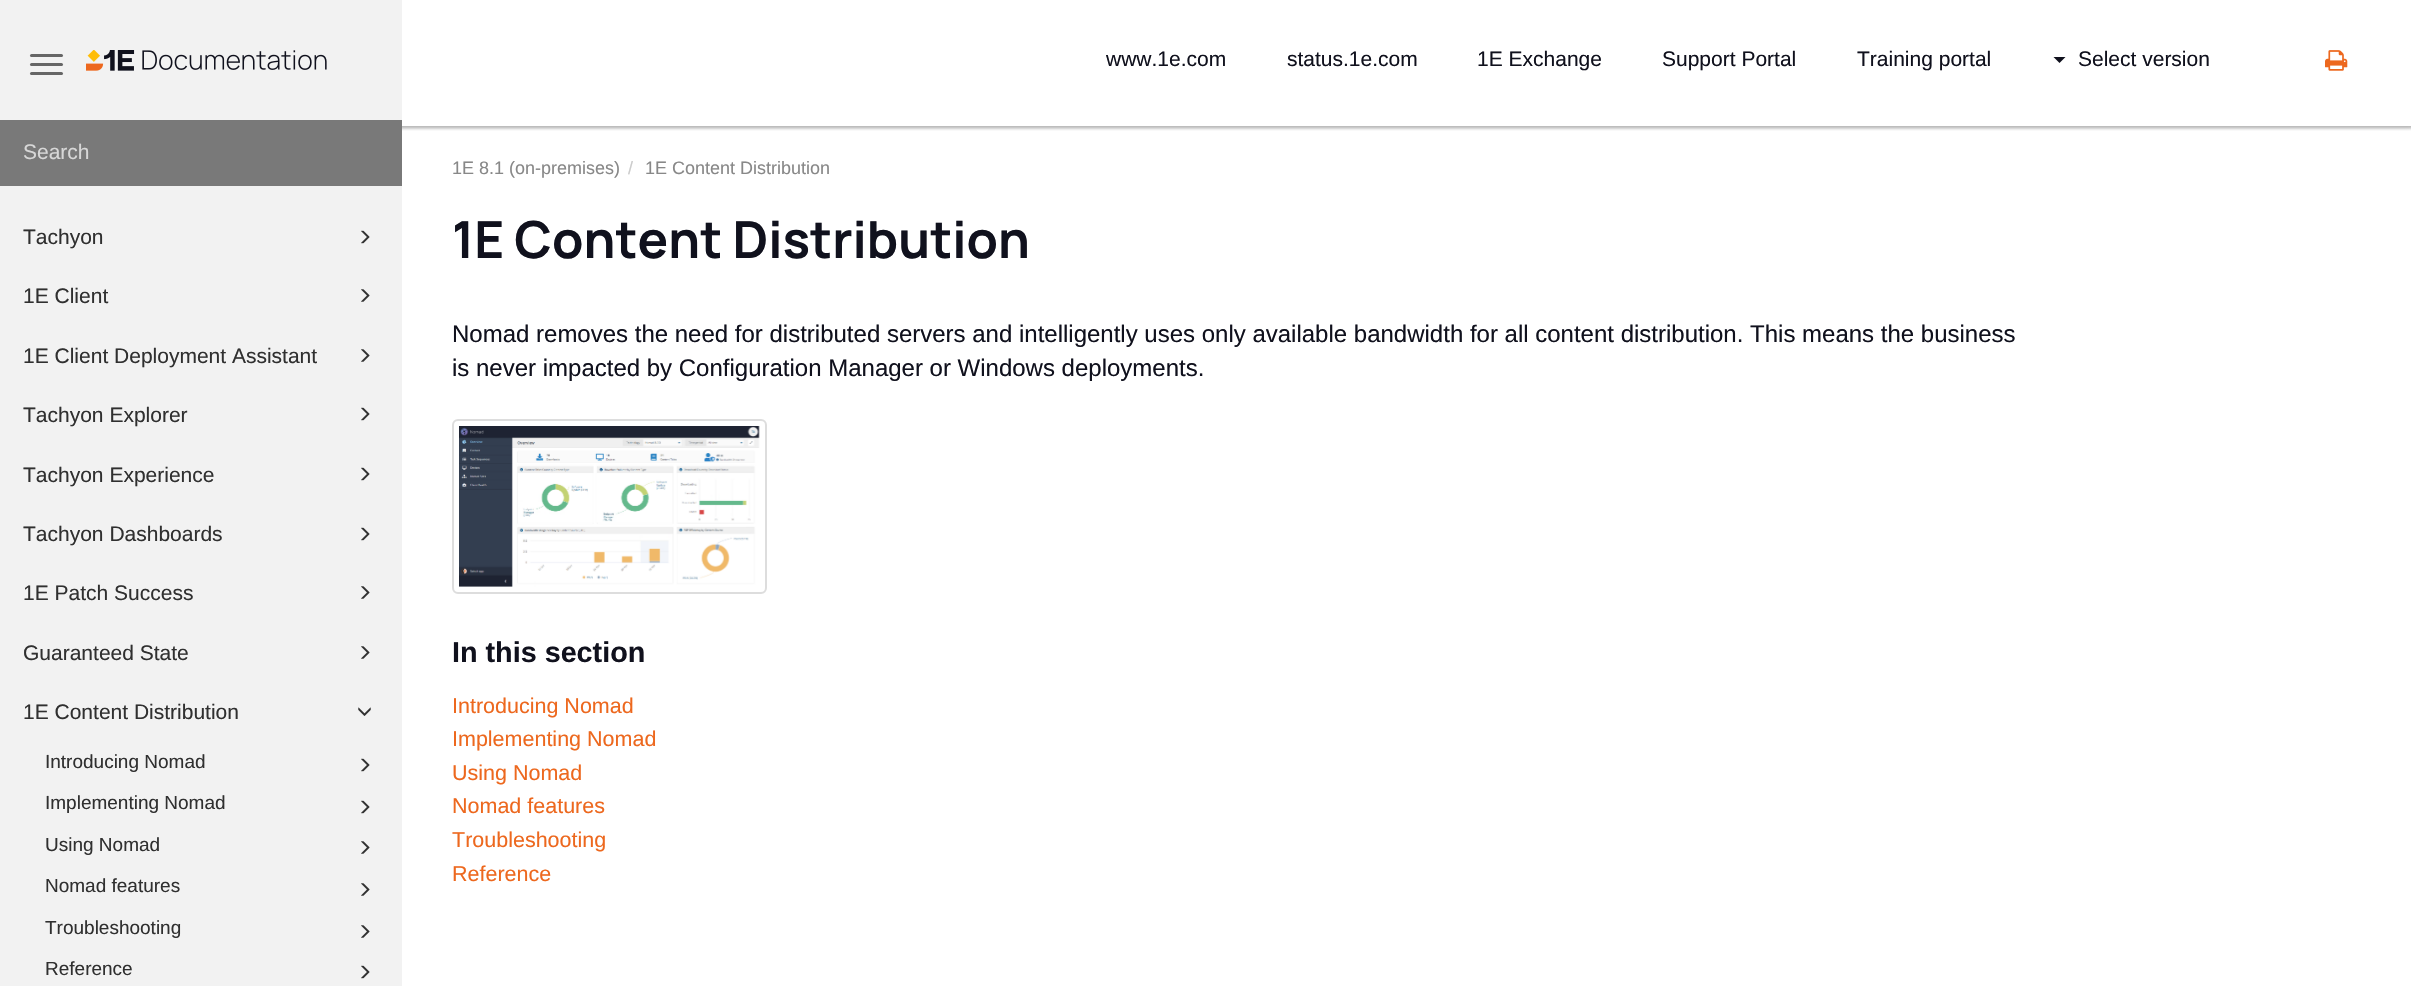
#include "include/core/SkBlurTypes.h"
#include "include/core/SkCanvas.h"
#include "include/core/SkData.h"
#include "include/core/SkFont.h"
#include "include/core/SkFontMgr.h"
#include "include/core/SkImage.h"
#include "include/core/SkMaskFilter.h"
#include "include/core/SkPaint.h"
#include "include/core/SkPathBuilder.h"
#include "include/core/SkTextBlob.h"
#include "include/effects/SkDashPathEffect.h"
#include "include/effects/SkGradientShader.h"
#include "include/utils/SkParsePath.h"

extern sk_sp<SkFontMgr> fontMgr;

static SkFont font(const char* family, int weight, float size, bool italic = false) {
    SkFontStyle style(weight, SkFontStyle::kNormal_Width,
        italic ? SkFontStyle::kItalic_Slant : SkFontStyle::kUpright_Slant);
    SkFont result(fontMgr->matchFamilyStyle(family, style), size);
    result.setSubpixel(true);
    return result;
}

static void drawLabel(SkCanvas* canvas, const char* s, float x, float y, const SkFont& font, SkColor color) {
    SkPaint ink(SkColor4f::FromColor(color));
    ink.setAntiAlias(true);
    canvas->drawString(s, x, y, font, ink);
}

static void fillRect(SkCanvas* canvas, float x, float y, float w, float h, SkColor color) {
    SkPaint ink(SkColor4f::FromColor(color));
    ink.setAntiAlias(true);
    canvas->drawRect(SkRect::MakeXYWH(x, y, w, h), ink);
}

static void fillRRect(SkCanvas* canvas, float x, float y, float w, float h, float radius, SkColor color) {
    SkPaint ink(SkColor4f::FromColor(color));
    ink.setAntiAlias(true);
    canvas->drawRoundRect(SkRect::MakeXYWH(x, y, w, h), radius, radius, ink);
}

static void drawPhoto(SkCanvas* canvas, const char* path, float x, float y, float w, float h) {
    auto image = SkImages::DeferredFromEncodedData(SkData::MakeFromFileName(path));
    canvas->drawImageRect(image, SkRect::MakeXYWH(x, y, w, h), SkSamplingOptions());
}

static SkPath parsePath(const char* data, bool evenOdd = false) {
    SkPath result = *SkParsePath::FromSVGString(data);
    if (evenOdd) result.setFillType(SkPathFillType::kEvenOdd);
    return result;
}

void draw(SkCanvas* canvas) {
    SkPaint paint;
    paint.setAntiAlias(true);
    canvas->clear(0xFFFFFFFF);
    canvas->save();
    canvas->clipRect(SkRect::MakeXYWH(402, 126, 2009, 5));
    paint.setColor(0x14000000);
    paint.setMaskFilter(SkMaskFilter::MakeBlur(kNormal_SkBlurStyle, 4));
    canvas->drawRect(SkRect::MakeXYWH(-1, -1, 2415, 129), paint);
    paint.setMaskFilter(nullptr);
    canvas->restore();
    canvas->save();
    canvas->clipRect(SkRect::MakeXYWH(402, 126, 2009, 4));
    paint.setColor(0x1A000000);
    paint.setMaskFilter(SkMaskFilter::MakeBlur(kNormal_SkBlurStyle, 1.5f));
    canvas->drawRect(SkRect::MakeXYWH(-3, -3, 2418, 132), paint);
    paint.setMaskFilter(nullptr);
    canvas->restore();
    canvas->save();
    canvas->clipRect(SkRect::MakeXYWH(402, 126, 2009, 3));
    paint.setColor(0x24000000);
    paint.setMaskFilter(SkMaskFilter::MakeBlur(kNormal_SkBlurStyle, 1));
    canvas->drawRect(SkRect::MakeXYWH(-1, -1, 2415, 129), paint);
    paint.setMaskFilter(nullptr);
    canvas->restore();
    fillRect(canvas, 0, 0, 402, 986, 0xFFF2F2F2);
    fillRRect(canvas, 30, 54, 33, 3, 1.5f, 0xFF666666);
    fillRRect(canvas, 30, 63, 33, 3, 1.5f, 0xFF666666);
    fillRRect(canvas, 30, 72, 33, 3, 1.5f, 0xFF666666);
    drawPhoto(canvas, "assets/img1.png", 86, 50, 241, 21);
    fillRect(canvas, 0, 120, 402, 66, 0xFF797979);
    SkFont font1 = font("Liberation Sans", 400, 21);
    drawLabel(canvas, "Search", 23, 159, font1, 0xFFD7D7D7);
    drawLabel(canvas, "Tachyon", 23, 244, font1, 0xFF303030);
    drawPhoto(canvas, "assets/img2.png", 361, 230, 9, 14);
    drawLabel(canvas, "1E Client", 23, 303, font1, 0xFF303030);
    drawPhoto(canvas, "assets/img3.png", 361, 289, 9, 13);
    drawLabel(canvas, "1E Client Deployment Assistant", 23, 363, font1, 0xFF303030);
    drawPhoto(canvas, "assets/img3.png", 361, 349, 9, 13);
    drawLabel(canvas, "Tachyon Explorer", 23, 422, font1, 0xFF303030);
    drawPhoto(canvas, "assets/img2.png", 361, 407, 9, 14);
    drawLabel(canvas, "Tachyon Experience", 23, 482, font1, 0xFF303030);
    drawPhoto(canvas, "assets/img2.png", 361, 467, 9, 14);
    drawLabel(canvas, "Tachyon Dashboards", 23, 541, font1, 0xFF303030);
    drawPhoto(canvas, "assets/img2.png", 361, 527, 9, 14);
    drawLabel(canvas, "1E Patch Success", 23, 600, font1, 0xFF303030);
    drawPhoto(canvas, "assets/img3.png", 361, 586, 9, 13);
    drawLabel(canvas, "Guaranteed State", 23, 660, font1, 0xFF303030);
    drawPhoto(canvas, "assets/img3.png", 361, 646, 9, 13);
    drawLabel(canvas, "1E Content Distribution", 23, 719, font1, 0xFF303030);
    drawPhoto(canvas, "assets/img4.png", 358, 707, 13, 9);
    SkFont font2 = font("Liberation Sans", 400, 19);
    drawLabel(canvas, "Introducing Nomad", 45, 768, font2, 0xFF303030);
    drawPhoto(canvas, "assets/img2.png", 361, 758, 9, 14);
    drawLabel(canvas, "Implementing Nomad", 45, 809, font2, 0xFF303030);
    drawPhoto(canvas, "assets/img2.png", 361, 800, 9, 14);
    drawLabel(canvas, "Using Nomad", 45, 851, font2, 0xFF303030);
    drawPhoto(canvas, "assets/img3.png", 361, 841, 9, 13);
    drawLabel(canvas, "Nomad features", 45, 892, font2, 0xFF303030);
    drawPhoto(canvas, "assets/img3.png", 361, 883, 9, 13);
    drawLabel(canvas, "Troubleshooting", 45, 934, font2, 0xFF303030);
    drawPhoto(canvas, "assets/img3.png", 361, 925, 9, 13);
    drawLabel(canvas, "Reference", 45, 975, font2, 0xFF303030);
    drawPhoto(canvas, "assets/img2.png", 361, 965, 9, 14);
    drawLabel(canvas, "www.1e.com", 1106, 66, font1, 0xFF10111D);
    drawLabel(canvas, "status.1e.com", 1287, 66, font1, 0xFF10111D);
    drawLabel(canvas, "1E Exchange", 1477, 66, font1, 0xFF10111D);
    drawLabel(canvas, "Support Portal", 1662, 66, font1, 0xFF10111D);
    drawLabel(canvas, "Training portal", 1857, 66, font1, 0xFF10111D);
    paint.setColor(0xFF10111D);
    canvas->drawPath(parsePath("M2053.5 57H2065.5L2059.5 63Z"), paint);
    drawLabel(canvas, "Select version", 2078, 66, font1, 0xFF10111D);
    drawPhoto(canvas, "assets/img5.png", 2325, 50, 23, 21);
    SkFont font3 = font("Liberation Sans", 400, 18);
    drawLabel(canvas, "1E 8.1 (on-premises)", 452, 174, font3, 0xFF888888);
    drawLabel(canvas, "/", 628, 174, font3, 0xFFCCCCCC);
    drawLabel(canvas, "1E Content Distribution", 645, 174, font3, 0xFF888888);
    SkFont font4 = font("Manrope", 700, 51);
    drawLabel(canvas, "1E Content Distribution", 452, 258, font4, 0xFF10111D);
    SkFont font5 = font("Liberation Sans", 400, 24);
    drawLabel(canvas, "Nomad removes the need for distributed servers and intelligently uses only available bandwidth for all content distribution. This means the business", 452, 342, font5, 0xFF10111D);
    drawLabel(canvas, "is never impacted by Configuration Manager or Windows deployments.", 452, 376, font5, 0xFF10111D);
    paint.setStroke(true);
    paint.setStrokeWidth(2);
    paint.setColor(0xFFDDDDDD);
    canvas->drawRoundRect(SkRect::MakeXYWH(453, 420, 313, 173), 5, 5, paint);
    drawPhoto(canvas, "assets/img6.png", 459, 426, 301, 161);
    SkFont font6 = font("Liberation Sans", 700, 28.75f);
    drawLabel(canvas, "In this section", 452, 662, font6, 0xFF10111D);
    SkFont font7 = font("Liberation Sans", 400, 21.5f);
    drawLabel(canvas, "Introducing Nomad", 452, 713, font7, 0xFFED681E);
    drawLabel(canvas, "Implementing Nomad", 452, 746, font7, 0xFFED681E);
    drawLabel(canvas, "Using Nomad", 452, 780, font7, 0xFFED681E);
    drawLabel(canvas, "Nomad features", 452, 813, font7, 0xFFED681E);
    drawLabel(canvas, "Troubleshooting", 452, 847, font7, 0xFFED681E);
    drawLabel(canvas, "Reference", 452, 881, font7, 0xFFED681E);
}
